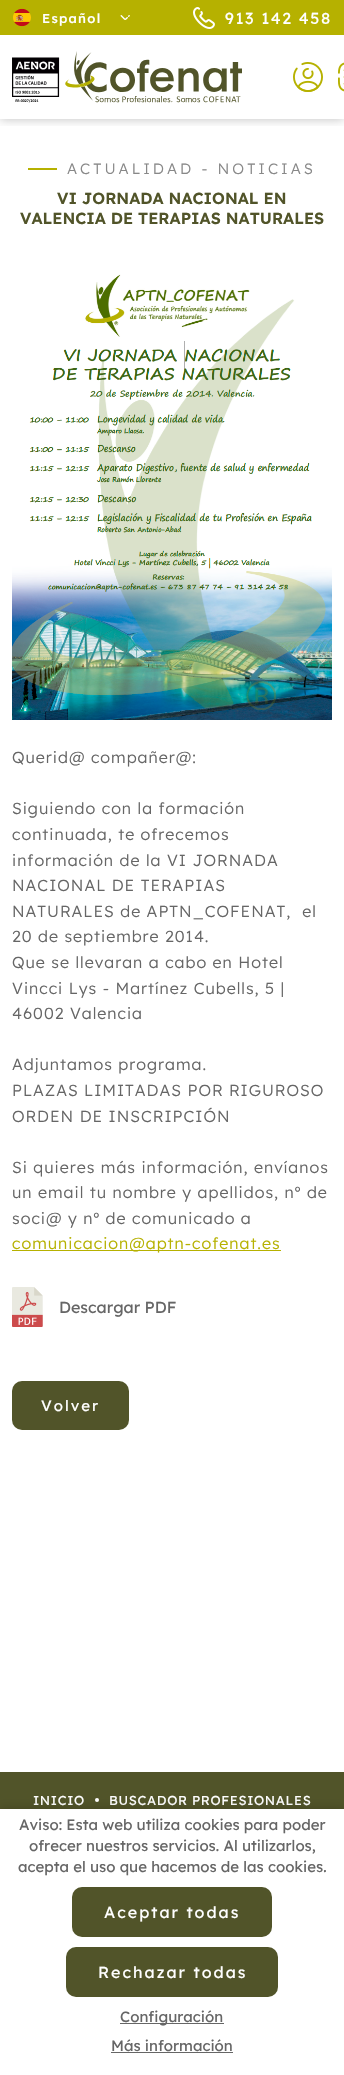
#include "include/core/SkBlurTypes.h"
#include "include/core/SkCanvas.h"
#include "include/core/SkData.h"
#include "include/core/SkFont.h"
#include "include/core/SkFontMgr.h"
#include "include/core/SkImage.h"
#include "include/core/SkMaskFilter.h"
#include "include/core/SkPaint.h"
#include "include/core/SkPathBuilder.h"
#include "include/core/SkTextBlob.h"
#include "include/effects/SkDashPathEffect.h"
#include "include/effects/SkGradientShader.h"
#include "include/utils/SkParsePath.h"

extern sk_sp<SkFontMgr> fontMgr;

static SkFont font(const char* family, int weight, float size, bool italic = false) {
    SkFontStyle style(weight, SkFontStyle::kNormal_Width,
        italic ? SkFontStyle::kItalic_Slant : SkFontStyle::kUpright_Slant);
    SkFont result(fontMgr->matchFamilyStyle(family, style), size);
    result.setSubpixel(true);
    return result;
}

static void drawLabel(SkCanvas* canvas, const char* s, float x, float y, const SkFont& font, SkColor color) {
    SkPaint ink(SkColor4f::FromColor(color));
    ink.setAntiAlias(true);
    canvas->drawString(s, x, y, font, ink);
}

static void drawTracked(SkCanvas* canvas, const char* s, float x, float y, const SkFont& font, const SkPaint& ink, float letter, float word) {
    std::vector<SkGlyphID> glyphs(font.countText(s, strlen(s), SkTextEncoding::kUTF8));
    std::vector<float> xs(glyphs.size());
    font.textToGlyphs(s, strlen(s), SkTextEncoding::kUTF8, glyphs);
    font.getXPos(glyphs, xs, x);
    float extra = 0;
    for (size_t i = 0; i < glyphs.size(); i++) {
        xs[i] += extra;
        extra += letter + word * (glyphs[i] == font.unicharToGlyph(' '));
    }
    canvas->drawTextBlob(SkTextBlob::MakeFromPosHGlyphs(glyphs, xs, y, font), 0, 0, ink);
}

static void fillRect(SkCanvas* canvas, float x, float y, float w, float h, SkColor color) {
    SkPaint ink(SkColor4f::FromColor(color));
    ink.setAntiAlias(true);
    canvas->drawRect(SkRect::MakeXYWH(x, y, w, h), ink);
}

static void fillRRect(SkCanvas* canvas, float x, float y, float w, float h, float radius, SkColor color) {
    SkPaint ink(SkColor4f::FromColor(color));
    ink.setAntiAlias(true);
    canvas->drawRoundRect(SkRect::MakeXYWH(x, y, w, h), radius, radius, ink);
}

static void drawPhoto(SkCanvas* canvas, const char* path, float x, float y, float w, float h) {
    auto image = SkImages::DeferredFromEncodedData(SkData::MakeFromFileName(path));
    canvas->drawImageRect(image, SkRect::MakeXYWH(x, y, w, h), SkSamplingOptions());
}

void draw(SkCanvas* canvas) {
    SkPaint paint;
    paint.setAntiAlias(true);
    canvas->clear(0xFFFFFFFF);
    canvas->save();
    canvas->clipRect(SkRect::MakeXYWH(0, 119, 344, 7));
    paint.setColor(0x40000000);
    paint.setMaskFilter(SkMaskFilter::MakeBlur(kNormal_SkBlurStyle, 5));
    canvas->drawRect(SkRect::MakeXYWH(0, 0, 344, 119), paint);
    paint.setMaskFilter(nullptr);
    canvas->restore();
    fillRect(canvas, 0, 0, 344, 35, 0xFFB6B100);
    drawPhoto(canvas, "assets/img1.png", 13, 8, 18, 19);
    SkFont font1 = font("Lexend", 500, 13);
    paint.setColor(0xFFFFFFFF);
    drawTracked(canvas, "Español", 42, 23, font1, paint, 1.25f, 0);
    drawPhoto(canvas, "assets/img2.png", 120, 15, 10, 5);
    drawPhoto(canvas, "assets/img3.png", 193, 7, 22, 22);
    SkFont font2 = font("Lexend", 400, 16);
    drawTracked(canvas, "913 142 458", 225, 24, font2, paint, 1.6f, 0);
    drawPhoto(canvas, "assets/img4.png", 12, 51, 230, 52);
    drawPhoto(canvas, "assets/img5.png", 293, 62, 30, 30);
    drawPhoto(canvas, "assets/img6.png", 338, 62, 6, 30);
    fillRect(canvas, 28, 168, 29, 2, 0xFFB6B100);
    SkFont font3 = font("Lexend", 300, 15);
    paint.setColor(0xFF888888);
    drawTracked(canvas, "ACTUALIDAD - NOTICIAS", 67, 174, font3, paint, 3, 0);
    SkFont font4 = font("Lexend", 600, 16);
    drawLabel(canvas, "VI JORNADA NACIONAL EN", 57, 204, font4, 0xFF515429);
    drawLabel(canvas, "VALENCIA DE TERAPIAS NATURALES", 20, 224, font4, 0xFF515429);
    drawPhoto(canvas, "assets/img7.png", 12, 274, 320, 446);
    SkFont font5 = font("Lexend", 300, 16);
    paint.setColor(0xFF666666);
    drawTracked(canvas, "Querid@ compañer@:", 12, 763, font5, paint, 1, 0);
    drawTracked(canvas, "Siguiendo con la formación", 12, 814, font5, paint, 1, 0);
    drawTracked(canvas, "continuada, te ofrecemos", 12, 840, font5, paint, 1, 0);
    drawTracked(canvas, "información de la VI JORNADA", 12, 866, font5, paint, 1, 0);
    drawTracked(canvas, "NACIONAL DE TERAPIAS", 12, 891, font5, paint, 1, 0);
    drawTracked(canvas, "NATURALES de APTN_COFENAT,  el", 12, 917, font5, paint, 1, 0);
    drawTracked(canvas, "20 de septiembre 2014.", 12, 942, font5, paint, 1, 0);
    drawTracked(canvas, "Que se llevaran a cabo en Hotel", 12, 968, font5, paint, 1, 0);
    drawTracked(canvas, "Vincci Lys - Martínez Cubells, 5 |", 12, 994, font5, paint, 1, 0);
    drawTracked(canvas, "46002 Valencia", 12, 1019, font5, paint, 1, 0);
    drawTracked(canvas, "Adjuntamos programa.", 12, 1070, font5, paint, 1, 0);
    drawTracked(canvas, "PLAZAS LIMITADAS POR RIGUROSO", 12, 1096, font5, paint, 1, 0);
    drawTracked(canvas, "ORDEN DE INSCRIPCIÓN", 12, 1122, font5, paint, 1, 0);
    drawTracked(canvas, "Si quieres más información, envíanos", 12, 1173, font5, paint, 1, 0);
    drawTracked(canvas, "un email tu nombre y apellidos, nº de", 12, 1198, font5, paint, 1, 0);
    drawTracked(canvas, "soci@ y nº de comunicado a", 12, 1224, font5, paint, 1, 0);
    fillRect(canvas, 12, 1250, 269, 1, 0xFFB6B100);
    paint.setColor(0xFFB6B100);
    drawTracked(canvas, "comunicacion@aptn-cofenat.es", 12, 1249, font5, paint, 1, 0);
    drawPhoto(canvas, "assets/img8.png", 12, 1287, 31, 40);
    drawLabel(canvas, "Descargar PDF", 59, 1313, font2, 0xFF666666);
    fillRRect(canvas, 12, 1381, 117, 49, 10, 0xFF515429);
    SkFont font6 = font("Lexend", 400, 15);
    paint.setColor(0xFFFFFFFF);
    drawTracked(canvas, "Volver", 41, 1411, font6, paint, 2, 0);
    fillRect(canvas, 0, 1772, 344, 37, 0xFF515429);
    SkFont font7 = font("Lexend", 400, 13);
    drawTracked(canvas, "INICIO", 33, 1805, font7, paint, 0.65f, 0);
    canvas->drawCircle(97, 1800, 2, paint);
    drawTracked(canvas, "BUSCADOR PROFESIONALES", 109, 1805, font7, paint, 0.65f, 0);
    paint.setColor(0x33000000);
    paint.setMaskFilter(SkMaskFilter::MakeBlur(kNormal_SkBlurStyle, 5));
    canvas->drawRect(SkRect::MakeXYWH(0, 1809, 344, 266), paint);
    paint.setMaskFilter(nullptr);
    fillRect(canvas, 0, 1809, 344, 266, 0xFFFFFFFF);
    drawLabel(canvas, "Aviso: Esta web utiliza cookies para poder", 19, 1830, font6, 0xFF666666);
    drawLabel(canvas, "ofrecer nuestros servicios. Al utilizarlos,", 29, 1851, font6, 0xFF666666);
    drawLabel(canvas, "acepta el uso que hacemos de las cookies.", 18, 1872, font6, 0xFF666666);
    fillRRect(canvas, 72, 1887, 200, 50, 10, 0xFF515429);
    paint.setColor(0xFFFFFFFF);
    drawTracked(canvas, "Aceptar todas", 104, 1918, font2, paint, 2, 0);
    fillRRect(canvas, 66, 1947, 212, 50, 10, 0xFF515429);
    drawTracked(canvas, "Rechazar todas", 98, 1978, font2, paint, 2, 0);
    fillRect(canvas, 120, 2023, 104, 1, 0xFF666666);
    drawLabel(canvas, "Configuración", 120, 2022, font6, 0xFF666666);
    drawLabel(canvas, "Más información", 111, 2051, font6, 0xFF666666);
    fillRect(canvas, 111, 2052, 122, 1, 0xFF666666);
}
